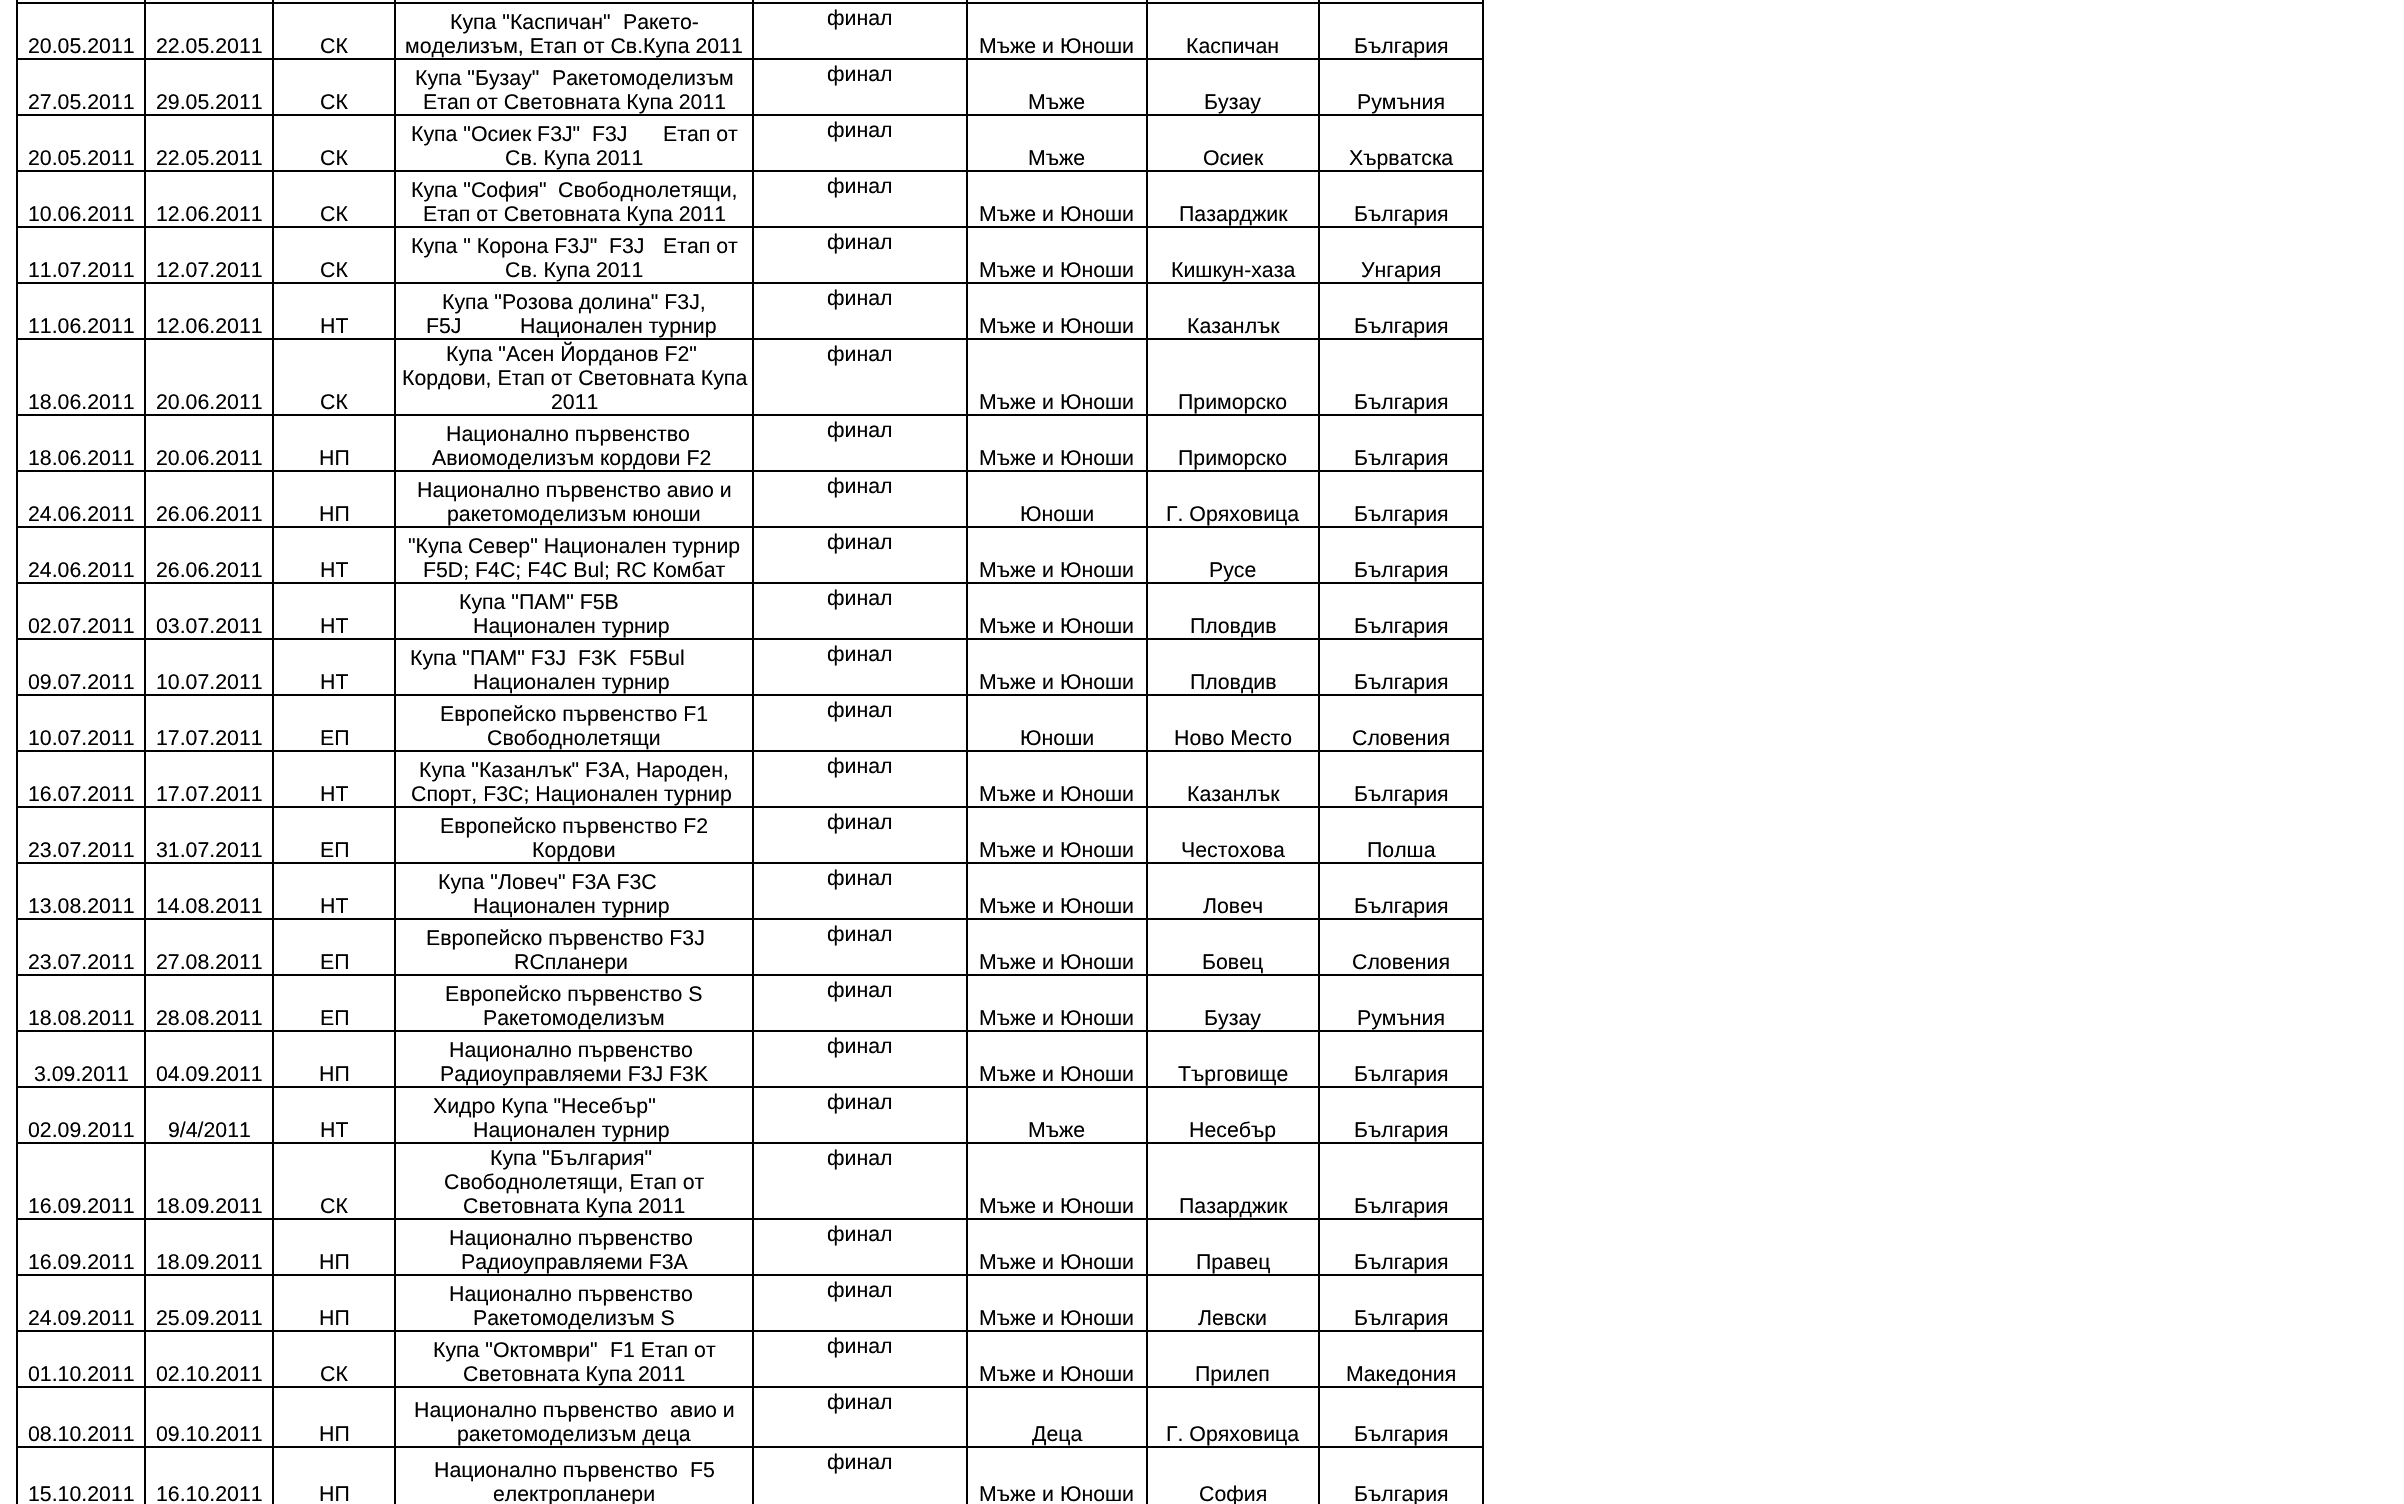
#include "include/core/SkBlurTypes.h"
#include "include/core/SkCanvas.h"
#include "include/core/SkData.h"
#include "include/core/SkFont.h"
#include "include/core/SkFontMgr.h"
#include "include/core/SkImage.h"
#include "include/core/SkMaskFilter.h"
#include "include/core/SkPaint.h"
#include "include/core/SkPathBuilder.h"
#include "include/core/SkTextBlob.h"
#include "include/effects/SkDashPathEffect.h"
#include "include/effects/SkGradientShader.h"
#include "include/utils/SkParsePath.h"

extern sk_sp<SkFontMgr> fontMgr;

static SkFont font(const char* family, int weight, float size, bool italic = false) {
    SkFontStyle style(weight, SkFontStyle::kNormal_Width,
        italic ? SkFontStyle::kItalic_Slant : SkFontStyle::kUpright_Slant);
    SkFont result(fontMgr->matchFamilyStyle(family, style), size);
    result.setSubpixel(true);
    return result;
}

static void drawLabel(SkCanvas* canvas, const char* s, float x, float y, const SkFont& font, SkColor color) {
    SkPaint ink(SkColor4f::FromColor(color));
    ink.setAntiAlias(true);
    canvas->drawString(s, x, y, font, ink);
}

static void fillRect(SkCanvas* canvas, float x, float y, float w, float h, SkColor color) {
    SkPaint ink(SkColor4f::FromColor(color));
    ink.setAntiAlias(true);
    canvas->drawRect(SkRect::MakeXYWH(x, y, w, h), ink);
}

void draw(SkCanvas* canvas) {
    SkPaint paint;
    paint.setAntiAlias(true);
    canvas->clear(0xFFFFFFFF);
    fillRect(canvas, 1482, 750, 2, 754, 0xFF000000);
    fillRect(canvas, 1482, 2, 2, 750, 0xFF000000);
    fillRect(canvas, 1482, 0, 2, 4, 0xFF000000);
    fillRect(canvas, 1318, 1446, 2, 58, 0xFF000000);
    fillRect(canvas, 1318, 1446, 166, 2, 0xFF000000);
    fillRect(canvas, 1318, 1386, 2, 62, 0xFF000000);
    fillRect(canvas, 1318, 1386, 166, 2, 0xFF000000);
    fillRect(canvas, 1318, 1330, 2, 58, 0xFF000000);
    fillRect(canvas, 1318, 1330, 166, 2, 0xFF000000);
    fillRect(canvas, 1318, 1274, 2, 58, 0xFF000000);
    fillRect(canvas, 1318, 1274, 166, 2, 0xFF000000);
    fillRect(canvas, 1318, 1218, 2, 58, 0xFF000000);
    fillRect(canvas, 1318, 1218, 166, 2, 0xFF000000);
    fillRect(canvas, 1318, 1142, 2, 78, 0xFF000000);
    fillRect(canvas, 1318, 1142, 166, 2, 0xFF000000);
    fillRect(canvas, 1318, 1086, 2, 58, 0xFF000000);
    fillRect(canvas, 1318, 1086, 166, 2, 0xFF000000);
    fillRect(canvas, 1318, 1030, 2, 58, 0xFF000000);
    fillRect(canvas, 1318, 1030, 166, 2, 0xFF000000);
    fillRect(canvas, 1318, 974, 2, 58, 0xFF000000);
    fillRect(canvas, 1318, 974, 166, 2, 0xFF000000);
    fillRect(canvas, 1318, 918, 2, 58, 0xFF000000);
    fillRect(canvas, 1318, 918, 166, 2, 0xFF000000);
    fillRect(canvas, 1318, 862, 2, 58, 0xFF000000);
    fillRect(canvas, 1318, 862, 166, 2, 0xFF000000);
    fillRect(canvas, 1318, 806, 2, 58, 0xFF000000);
    fillRect(canvas, 1318, 806, 166, 2, 0xFF000000);
    fillRect(canvas, 1318, 750, 2, 58, 0xFF000000);
    fillRect(canvas, 1318, 750, 166, 2, 0xFF000000);
    fillRect(canvas, 1318, 694, 2, 58, 0xFF000000);
    fillRect(canvas, 1318, 694, 166, 2, 0xFF000000);
    fillRect(canvas, 1318, 638, 2, 58, 0xFF000000);
    fillRect(canvas, 1318, 638, 166, 2, 0xFF000000);
    fillRect(canvas, 1318, 582, 2, 58, 0xFF000000);
    fillRect(canvas, 1318, 582, 166, 2, 0xFF000000);
    fillRect(canvas, 1318, 526, 2, 58, 0xFF000000);
    fillRect(canvas, 1318, 526, 166, 2, 0xFF000000);
    fillRect(canvas, 1318, 470, 2, 58, 0xFF000000);
    fillRect(canvas, 1318, 470, 166, 2, 0xFF000000);
    fillRect(canvas, 1318, 414, 2, 58, 0xFF000000);
    fillRect(canvas, 1318, 414, 166, 2, 0xFF000000);
    fillRect(canvas, 1318, 338, 2, 78, 0xFF000000);
    fillRect(canvas, 1318, 338, 166, 2, 0xFF000000);
    fillRect(canvas, 1318, 282, 2, 58, 0xFF000000);
    fillRect(canvas, 1318, 282, 166, 2, 0xFF000000);
    fillRect(canvas, 1318, 226, 2, 58, 0xFF000000);
    fillRect(canvas, 1318, 226, 166, 2, 0xFF000000);
    fillRect(canvas, 1318, 170, 2, 58, 0xFF000000);
    fillRect(canvas, 1318, 170, 166, 2, 0xFF000000);
    fillRect(canvas, 1318, 114, 2, 58, 0xFF000000);
    fillRect(canvas, 1318, 114, 166, 2, 0xFF000000);
    fillRect(canvas, 1318, 58, 2, 58, 0xFF000000);
    fillRect(canvas, 1318, 58, 166, 2, 0xFF000000);
    fillRect(canvas, 1318, 2, 2, 58, 0xFF000000);
    fillRect(canvas, 1318, 2, 166, 2, 0xFF000000);
    fillRect(canvas, 1318, 0, 2, 4, 0xFF000000);
    fillRect(canvas, 1146, 1446, 2, 58, 0xFF000000);
    fillRect(canvas, 1146, 1446, 174, 2, 0xFF000000);
    fillRect(canvas, 1146, 1386, 2, 62, 0xFF000000);
    fillRect(canvas, 1146, 1386, 174, 2, 0xFF000000);
    fillRect(canvas, 1146, 1330, 2, 58, 0xFF000000);
    fillRect(canvas, 1146, 1330, 174, 2, 0xFF000000);
    fillRect(canvas, 1146, 1274, 2, 58, 0xFF000000);
    fillRect(canvas, 1146, 1274, 174, 2, 0xFF000000);
    fillRect(canvas, 1146, 1218, 2, 58, 0xFF000000);
    fillRect(canvas, 1146, 1218, 174, 2, 0xFF000000);
    fillRect(canvas, 1146, 1142, 2, 78, 0xFF000000);
    fillRect(canvas, 1146, 1142, 174, 2, 0xFF000000);
    fillRect(canvas, 1146, 1086, 2, 58, 0xFF000000);
    fillRect(canvas, 1146, 1086, 174, 2, 0xFF000000);
    fillRect(canvas, 1146, 1030, 2, 58, 0xFF000000);
    fillRect(canvas, 1146, 1030, 174, 2, 0xFF000000);
    fillRect(canvas, 1146, 974, 2, 58, 0xFF000000);
    fillRect(canvas, 1146, 974, 174, 2, 0xFF000000);
    fillRect(canvas, 1146, 918, 2, 58, 0xFF000000);
    fillRect(canvas, 1146, 918, 174, 2, 0xFF000000);
    fillRect(canvas, 1146, 862, 2, 58, 0xFF000000);
    fillRect(canvas, 1146, 862, 174, 2, 0xFF000000);
    fillRect(canvas, 1146, 806, 2, 58, 0xFF000000);
    fillRect(canvas, 1146, 806, 174, 2, 0xFF000000);
    fillRect(canvas, 1146, 750, 2, 58, 0xFF000000);
    fillRect(canvas, 1146, 750, 174, 2, 0xFF000000);
    fillRect(canvas, 1146, 694, 2, 58, 0xFF000000);
    fillRect(canvas, 1146, 694, 174, 2, 0xFF000000);
    fillRect(canvas, 1146, 638, 2, 58, 0xFF000000);
    fillRect(canvas, 1146, 638, 174, 2, 0xFF000000);
    fillRect(canvas, 1146, 582, 2, 58, 0xFF000000);
    fillRect(canvas, 1146, 582, 174, 2, 0xFF000000);
    fillRect(canvas, 1146, 526, 2, 58, 0xFF000000);
    fillRect(canvas, 1146, 526, 174, 2, 0xFF000000);
    fillRect(canvas, 1146, 470, 2, 58, 0xFF000000);
    fillRect(canvas, 1146, 470, 174, 2, 0xFF000000);
    fillRect(canvas, 1146, 414, 2, 58, 0xFF000000);
    fillRect(canvas, 1146, 414, 174, 2, 0xFF000000);
    fillRect(canvas, 1146, 338, 2, 78, 0xFF000000);
    fillRect(canvas, 1146, 338, 174, 2, 0xFF000000);
    fillRect(canvas, 1146, 282, 2, 58, 0xFF000000);
    fillRect(canvas, 1146, 282, 174, 2, 0xFF000000);
    fillRect(canvas, 1146, 226, 2, 58, 0xFF000000);
    fillRect(canvas, 1146, 226, 174, 2, 0xFF000000);
    fillRect(canvas, 1146, 170, 2, 58, 0xFF000000);
    fillRect(canvas, 1146, 170, 174, 2, 0xFF000000);
    fillRect(canvas, 1146, 114, 2, 58, 0xFF000000);
    fillRect(canvas, 1146, 114, 174, 2, 0xFF000000);
    fillRect(canvas, 1146, 58, 2, 58, 0xFF000000);
    fillRect(canvas, 1146, 58, 174, 2, 0xFF000000);
    fillRect(canvas, 1146, 2, 2, 58, 0xFF000000);
    fillRect(canvas, 1146, 2, 174, 2, 0xFF000000);
    fillRect(canvas, 1146, 0, 2, 4, 0xFF000000);
    fillRect(canvas, 966, 1446, 2, 58, 0xFF000000);
    fillRect(canvas, 966, 1446, 182, 2, 0xFF000000);
    fillRect(canvas, 966, 1386, 2, 62, 0xFF000000);
    fillRect(canvas, 966, 1386, 182, 2, 0xFF000000);
    fillRect(canvas, 966, 1330, 2, 58, 0xFF000000);
    fillRect(canvas, 966, 1330, 182, 2, 0xFF000000);
    fillRect(canvas, 966, 1274, 2, 58, 0xFF000000);
    fillRect(canvas, 966, 1274, 182, 2, 0xFF000000);
    fillRect(canvas, 966, 1218, 2, 58, 0xFF000000);
    fillRect(canvas, 966, 1218, 182, 2, 0xFF000000);
    fillRect(canvas, 966, 1142, 2, 78, 0xFF000000);
    fillRect(canvas, 966, 1142, 182, 2, 0xFF000000);
    fillRect(canvas, 966, 1086, 2, 58, 0xFF000000);
    fillRect(canvas, 966, 1086, 182, 2, 0xFF000000);
    fillRect(canvas, 966, 1030, 2, 58, 0xFF000000);
    fillRect(canvas, 966, 1030, 182, 2, 0xFF000000);
    fillRect(canvas, 966, 974, 2, 58, 0xFF000000);
    fillRect(canvas, 966, 974, 182, 2, 0xFF000000);
    fillRect(canvas, 966, 918, 2, 58, 0xFF000000);
    fillRect(canvas, 966, 918, 182, 2, 0xFF000000);
    fillRect(canvas, 966, 862, 2, 58, 0xFF000000);
    fillRect(canvas, 966, 862, 182, 2, 0xFF000000);
    fillRect(canvas, 966, 806, 2, 58, 0xFF000000);
    fillRect(canvas, 966, 806, 182, 2, 0xFF000000);
    fillRect(canvas, 966, 750, 2, 58, 0xFF000000);
    fillRect(canvas, 966, 750, 182, 2, 0xFF000000);
    fillRect(canvas, 966, 694, 2, 58, 0xFF000000);
    fillRect(canvas, 966, 694, 182, 2, 0xFF000000);
    fillRect(canvas, 966, 638, 2, 58, 0xFF000000);
    fillRect(canvas, 966, 638, 182, 2, 0xFF000000);
    fillRect(canvas, 966, 582, 2, 58, 0xFF000000);
    fillRect(canvas, 966, 582, 182, 2, 0xFF000000);
    fillRect(canvas, 966, 526, 2, 58, 0xFF000000);
    fillRect(canvas, 966, 526, 182, 2, 0xFF000000);
    fillRect(canvas, 966, 470, 2, 58, 0xFF000000);
    fillRect(canvas, 966, 470, 182, 2, 0xFF000000);
    fillRect(canvas, 966, 414, 2, 58, 0xFF000000);
    fillRect(canvas, 966, 414, 182, 2, 0xFF000000);
    fillRect(canvas, 966, 338, 2, 78, 0xFF000000);
    fillRect(canvas, 966, 338, 182, 2, 0xFF000000);
    fillRect(canvas, 966, 282, 2, 58, 0xFF000000);
    fillRect(canvas, 966, 282, 182, 2, 0xFF000000);
    fillRect(canvas, 966, 226, 2, 58, 0xFF000000);
    fillRect(canvas, 966, 226, 182, 2, 0xFF000000);
    fillRect(canvas, 966, 170, 2, 58, 0xFF000000);
    fillRect(canvas, 966, 170, 182, 2, 0xFF000000);
    fillRect(canvas, 966, 114, 2, 58, 0xFF000000);
    fillRect(canvas, 966, 114, 182, 2, 0xFF000000);
    fillRect(canvas, 966, 58, 2, 58, 0xFF000000);
    fillRect(canvas, 966, 58, 182, 2, 0xFF000000);
    fillRect(canvas, 966, 2, 2, 58, 0xFF000000);
    fillRect(canvas, 966, 2, 182, 2, 0xFF000000);
    fillRect(canvas, 966, 0, 2, 4, 0xFF000000);
    fillRect(canvas, 752, 1446, 2, 58, 0xFF000000);
    fillRect(canvas, 752, 1446, 216, 2, 0xFF000000);
    fillRect(canvas, 752, 1386, 2, 62, 0xFF000000);
    fillRect(canvas, 752, 1386, 216, 2, 0xFF000000);
    fillRect(canvas, 752, 1330, 2, 58, 0xFF000000);
    fillRect(canvas, 752, 1330, 216, 2, 0xFF000000);
    fillRect(canvas, 752, 1274, 2, 58, 0xFF000000);
    fillRect(canvas, 752, 1274, 216, 2, 0xFF000000);
    fillRect(canvas, 752, 1218, 2, 58, 0xFF000000);
    fillRect(canvas, 752, 1218, 216, 2, 0xFF000000);
    fillRect(canvas, 752, 1142, 2, 78, 0xFF000000);
    fillRect(canvas, 752, 1142, 216, 2, 0xFF000000);
    fillRect(canvas, 752, 1086, 2, 58, 0xFF000000);
    fillRect(canvas, 752, 1086, 216, 2, 0xFF000000);
    fillRect(canvas, 752, 1030, 2, 58, 0xFF000000);
    fillRect(canvas, 752, 1030, 216, 2, 0xFF000000);
    fillRect(canvas, 752, 974, 2, 58, 0xFF000000);
    fillRect(canvas, 752, 974, 216, 2, 0xFF000000);
    fillRect(canvas, 752, 918, 2, 58, 0xFF000000);
    fillRect(canvas, 752, 918, 216, 2, 0xFF000000);
    fillRect(canvas, 752, 862, 2, 58, 0xFF000000);
    fillRect(canvas, 752, 862, 216, 2, 0xFF000000);
    fillRect(canvas, 752, 806, 2, 58, 0xFF000000);
    fillRect(canvas, 752, 806, 216, 2, 0xFF000000);
    fillRect(canvas, 752, 750, 2, 58, 0xFF000000);
    fillRect(canvas, 752, 750, 216, 2, 0xFF000000);
    fillRect(canvas, 752, 694, 2, 58, 0xFF000000);
    fillRect(canvas, 752, 694, 216, 2, 0xFF000000);
    fillRect(canvas, 752, 638, 2, 58, 0xFF000000);
    fillRect(canvas, 752, 638, 216, 2, 0xFF000000);
    fillRect(canvas, 752, 582, 2, 58, 0xFF000000);
    fillRect(canvas, 752, 582, 216, 2, 0xFF000000);
    fillRect(canvas, 752, 526, 2, 58, 0xFF000000);
    fillRect(canvas, 752, 526, 216, 2, 0xFF000000);
    fillRect(canvas, 752, 470, 2, 58, 0xFF000000);
    fillRect(canvas, 752, 470, 216, 2, 0xFF000000);
    fillRect(canvas, 752, 414, 2, 58, 0xFF000000);
    fillRect(canvas, 752, 414, 216, 2, 0xFF000000);
    fillRect(canvas, 752, 338, 2, 78, 0xFF000000);
    fillRect(canvas, 752, 338, 216, 2, 0xFF000000);
    fillRect(canvas, 752, 282, 2, 58, 0xFF000000);
    fillRect(canvas, 752, 282, 216, 2, 0xFF000000);
    fillRect(canvas, 752, 226, 2, 58, 0xFF000000);
    fillRect(canvas, 752, 226, 216, 2, 0xFF000000);
    fillRect(canvas, 752, 170, 2, 58, 0xFF000000);
    fillRect(canvas, 752, 170, 216, 2, 0xFF000000);
    fillRect(canvas, 752, 114, 2, 58, 0xFF000000);
    fillRect(canvas, 752, 114, 216, 2, 0xFF000000);
    fillRect(canvas, 752, 58, 2, 58, 0xFF000000);
    fillRect(canvas, 752, 58, 216, 2, 0xFF000000);
    fillRect(canvas, 752, 2, 2, 58, 0xFF000000);
    fillRect(canvas, 752, 2, 216, 2, 0xFF000000);
    fillRect(canvas, 752, 0, 2, 4, 0xFF000000);
    fillRect(canvas, 394, 1446, 2, 58, 0xFF000000);
    fillRect(canvas, 394, 1446, 360, 2, 0xFF000000);
    fillRect(canvas, 394, 1386, 2, 62, 0xFF000000);
    fillRect(canvas, 394, 1386, 360, 2, 0xFF000000);
    fillRect(canvas, 394, 1330, 2, 58, 0xFF000000);
    fillRect(canvas, 394, 1330, 360, 2, 0xFF000000);
    fillRect(canvas, 394, 1274, 2, 58, 0xFF000000);
    fillRect(canvas, 394, 1274, 360, 2, 0xFF000000);
    fillRect(canvas, 394, 1218, 2, 58, 0xFF000000);
    fillRect(canvas, 394, 1218, 360, 2, 0xFF000000);
    fillRect(canvas, 394, 1142, 2, 78, 0xFF000000);
    fillRect(canvas, 394, 1142, 360, 2, 0xFF000000);
    fillRect(canvas, 394, 1086, 2, 58, 0xFF000000);
    fillRect(canvas, 394, 1086, 360, 2, 0xFF000000);
    fillRect(canvas, 394, 1030, 2, 58, 0xFF000000);
    fillRect(canvas, 394, 1030, 360, 2, 0xFF000000);
    fillRect(canvas, 394, 974, 2, 58, 0xFF000000);
    fillRect(canvas, 394, 974, 360, 2, 0xFF000000);
    fillRect(canvas, 394, 918, 2, 58, 0xFF000000);
    fillRect(canvas, 394, 918, 360, 2, 0xFF000000);
    fillRect(canvas, 394, 862, 2, 58, 0xFF000000);
    fillRect(canvas, 394, 862, 360, 2, 0xFF000000);
    fillRect(canvas, 394, 806, 2, 58, 0xFF000000);
    fillRect(canvas, 394, 806, 360, 2, 0xFF000000);
    fillRect(canvas, 394, 750, 2, 58, 0xFF000000);
    fillRect(canvas, 394, 750, 360, 2, 0xFF000000);
    fillRect(canvas, 394, 694, 2, 58, 0xFF000000);
    fillRect(canvas, 394, 694, 360, 2, 0xFF000000);
    fillRect(canvas, 394, 638, 2, 58, 0xFF000000);
    fillRect(canvas, 394, 638, 360, 2, 0xFF000000);
    fillRect(canvas, 394, 582, 2, 58, 0xFF000000);
    fillRect(canvas, 394, 582, 360, 2, 0xFF000000);
    fillRect(canvas, 394, 526, 2, 58, 0xFF000000);
    fillRect(canvas, 394, 526, 360, 2, 0xFF000000);
    fillRect(canvas, 394, 470, 2, 58, 0xFF000000);
    fillRect(canvas, 394, 470, 360, 2, 0xFF000000);
    fillRect(canvas, 394, 414, 2, 58, 0xFF000000);
    fillRect(canvas, 394, 414, 360, 2, 0xFF000000);
    fillRect(canvas, 394, 338, 2, 78, 0xFF000000);
    fillRect(canvas, 394, 338, 360, 2, 0xFF000000);
    fillRect(canvas, 394, 282, 2, 58, 0xFF000000);
    fillRect(canvas, 394, 282, 360, 2, 0xFF000000);
    fillRect(canvas, 394, 226, 2, 58, 0xFF000000);
    fillRect(canvas, 394, 226, 360, 2, 0xFF000000);
    fillRect(canvas, 394, 170, 2, 58, 0xFF000000);
    fillRect(canvas, 394, 170, 360, 2, 0xFF000000);
    fillRect(canvas, 394, 114, 2, 58, 0xFF000000);
    fillRect(canvas, 394, 114, 360, 2, 0xFF000000);
    fillRect(canvas, 394, 58, 2, 58, 0xFF000000);
    fillRect(canvas, 394, 58, 360, 2, 0xFF000000);
    fillRect(canvas, 394, 2, 2, 58, 0xFF000000);
    fillRect(canvas, 394, 2, 360, 2, 0xFF000000);
    fillRect(canvas, 394, 0, 2, 4, 0xFF000000);
    fillRect(canvas, 272, 1446, 2, 58, 0xFF000000);
    fillRect(canvas, 272, 1446, 124, 2, 0xFF000000);
    fillRect(canvas, 272, 1386, 2, 62, 0xFF000000);
    fillRect(canvas, 272, 1386, 124, 2, 0xFF000000);
    fillRect(canvas, 272, 1330, 2, 58, 0xFF000000);
    fillRect(canvas, 272, 1330, 124, 2, 0xFF000000);
    fillRect(canvas, 272, 1274, 2, 58, 0xFF000000);
    fillRect(canvas, 272, 1274, 124, 2, 0xFF000000);
    fillRect(canvas, 272, 1218, 2, 58, 0xFF000000);
    fillRect(canvas, 272, 1218, 124, 2, 0xFF000000);
    fillRect(canvas, 272, 1142, 2, 78, 0xFF000000);
    fillRect(canvas, 272, 1142, 124, 2, 0xFF000000);
    fillRect(canvas, 272, 1086, 2, 58, 0xFF000000);
    fillRect(canvas, 272, 1086, 124, 2, 0xFF000000);
    fillRect(canvas, 272, 1030, 2, 58, 0xFF000000);
    fillRect(canvas, 272, 1030, 124, 2, 0xFF000000);
    fillRect(canvas, 272, 974, 2, 58, 0xFF000000);
    fillRect(canvas, 272, 974, 124, 2, 0xFF000000);
    fillRect(canvas, 272, 918, 2, 58, 0xFF000000);
    fillRect(canvas, 272, 918, 124, 2, 0xFF000000);
    fillRect(canvas, 272, 862, 2, 58, 0xFF000000);
    fillRect(canvas, 272, 862, 124, 2, 0xFF000000);
    fillRect(canvas, 272, 806, 2, 58, 0xFF000000);
    fillRect(canvas, 272, 806, 124, 2, 0xFF000000);
    fillRect(canvas, 272, 750, 2, 58, 0xFF000000);
    fillRect(canvas, 272, 750, 124, 2, 0xFF000000);
    fillRect(canvas, 272, 694, 2, 58, 0xFF000000);
    fillRect(canvas, 272, 694, 124, 2, 0xFF000000);
    fillRect(canvas, 272, 638, 2, 58, 0xFF000000);
    fillRect(canvas, 272, 638, 124, 2, 0xFF000000);
    fillRect(canvas, 272, 582, 2, 58, 0xFF000000);
    fillRect(canvas, 272, 582, 124, 2, 0xFF000000);
    fillRect(canvas, 272, 526, 2, 58, 0xFF000000);
    fillRect(canvas, 272, 526, 124, 2, 0xFF000000);
    fillRect(canvas, 272, 470, 2, 58, 0xFF000000);
    fillRect(canvas, 272, 470, 124, 2, 0xFF000000);
    fillRect(canvas, 272, 414, 2, 58, 0xFF000000);
    fillRect(canvas, 272, 414, 124, 2, 0xFF000000);
    fillRect(canvas, 272, 338, 2, 78, 0xFF000000);
    fillRect(canvas, 272, 338, 124, 2, 0xFF000000);
    fillRect(canvas, 272, 282, 2, 58, 0xFF000000);
    fillRect(canvas, 272, 282, 124, 2, 0xFF000000);
    fillRect(canvas, 272, 226, 2, 58, 0xFF000000);
    fillRect(canvas, 272, 226, 124, 2, 0xFF000000);
    fillRect(canvas, 272, 170, 2, 58, 0xFF000000);
    fillRect(canvas, 272, 170, 124, 2, 0xFF000000);
    fillRect(canvas, 272, 114, 2, 58, 0xFF000000);
    fillRect(canvas, 272, 114, 124, 2, 0xFF000000);
    fillRect(canvas, 272, 58, 2, 58, 0xFF000000);
    fillRect(canvas, 272, 58, 124, 2, 0xFF000000);
    fillRect(canvas, 272, 2, 2, 58, 0xFF000000);
    fillRect(canvas, 272, 2, 124, 2, 0xFF000000);
    fillRect(canvas, 272, 0, 2, 4, 0xFF000000);
    fillRect(canvas, 144, 1446, 2, 58, 0xFF000000);
    fillRect(canvas, 144, 1446, 130, 2, 0xFF000000);
    fillRect(canvas, 144, 1386, 2, 62, 0xFF000000);
    fillRect(canvas, 144, 1386, 130, 2, 0xFF000000);
    fillRect(canvas, 144, 1330, 2, 58, 0xFF000000);
    fillRect(canvas, 144, 1330, 130, 2, 0xFF000000);
    fillRect(canvas, 144, 1274, 2, 58, 0xFF000000);
    fillRect(canvas, 144, 1274, 130, 2, 0xFF000000);
    fillRect(canvas, 144, 1218, 2, 58, 0xFF000000);
    fillRect(canvas, 144, 1218, 130, 2, 0xFF000000);
    fillRect(canvas, 144, 1142, 2, 78, 0xFF000000);
    fillRect(canvas, 144, 1142, 130, 2, 0xFF000000);
    fillRect(canvas, 144, 1086, 2, 58, 0xFF000000);
    fillRect(canvas, 144, 1086, 130, 2, 0xFF000000);
    fillRect(canvas, 144, 1030, 2, 58, 0xFF000000);
    fillRect(canvas, 144, 1030, 130, 2, 0xFF000000);
    fillRect(canvas, 144, 974, 2, 58, 0xFF000000);
    fillRect(canvas, 144, 974, 130, 2, 0xFF000000);
    fillRect(canvas, 144, 918, 2, 58, 0xFF000000);
    fillRect(canvas, 144, 918, 130, 2, 0xFF000000);
    fillRect(canvas, 144, 862, 2, 58, 0xFF000000);
    fillRect(canvas, 144, 862, 130, 2, 0xFF000000);
    fillRect(canvas, 144, 806, 2, 58, 0xFF000000);
    fillRect(canvas, 144, 806, 130, 2, 0xFF000000);
    fillRect(canvas, 144, 750, 2, 58, 0xFF000000);
    fillRect(canvas, 144, 750, 130, 2, 0xFF000000);
    fillRect(canvas, 144, 694, 2, 58, 0xFF000000);
    fillRect(canvas, 144, 694, 130, 2, 0xFF000000);
    fillRect(canvas, 144, 638, 2, 58, 0xFF000000);
    fillRect(canvas, 144, 638, 130, 2, 0xFF000000);
    fillRect(canvas, 144, 582, 2, 58, 0xFF000000);
    fillRect(canvas, 144, 582, 130, 2, 0xFF000000);
    fillRect(canvas, 144, 526, 2, 58, 0xFF000000);
    fillRect(canvas, 144, 526, 130, 2, 0xFF000000);
    fillRect(canvas, 144, 470, 2, 58, 0xFF000000);
    fillRect(canvas, 144, 470, 130, 2, 0xFF000000);
    fillRect(canvas, 144, 414, 2, 58, 0xFF000000);
    fillRect(canvas, 144, 414, 130, 2, 0xFF000000);
    fillRect(canvas, 144, 338, 2, 78, 0xFF000000);
    fillRect(canvas, 144, 338, 130, 2, 0xFF000000);
    fillRect(canvas, 144, 282, 2, 58, 0xFF000000);
    fillRect(canvas, 144, 282, 130, 2, 0xFF000000);
    fillRect(canvas, 144, 226, 2, 58, 0xFF000000);
    fillRect(canvas, 144, 226, 130, 2, 0xFF000000);
    fillRect(canvas, 144, 170, 2, 58, 0xFF000000);
    fillRect(canvas, 144, 170, 130, 2, 0xFF000000);
    fillRect(canvas, 144, 114, 2, 58, 0xFF000000);
    fillRect(canvas, 144, 114, 130, 2, 0xFF000000);
    fillRect(canvas, 144, 58, 2, 58, 0xFF000000);
    fillRect(canvas, 144, 58, 130, 2, 0xFF000000);
    fillRect(canvas, 144, 2, 2, 58, 0xFF000000);
    fillRect(canvas, 144, 2, 130, 2, 0xFF000000);
    fillRect(canvas, 144, 0, 2, 4, 0xFF000000);
    fillRect(canvas, 16, 1446, 2, 58, 0xFF000000);
    fillRect(canvas, 16, 1446, 130, 2, 0xFF000000);
    fillRect(canvas, 16, 1386, 2, 62, 0xFF000000);
    fillRect(canvas, 16, 1386, 130, 2, 0xFF000000);
    fillRect(canvas, 16, 1330, 2, 58, 0xFF000000);
    fillRect(canvas, 16, 1330, 130, 2, 0xFF000000);
    fillRect(canvas, 16, 1274, 2, 58, 0xFF000000);
    fillRect(canvas, 16, 1274, 130, 2, 0xFF000000);
    fillRect(canvas, 16, 1218, 2, 58, 0xFF000000);
    fillRect(canvas, 16, 1218, 130, 2, 0xFF000000);
    fillRect(canvas, 16, 1142, 2, 78, 0xFF000000);
    fillRect(canvas, 16, 1142, 130, 2, 0xFF000000);
    fillRect(canvas, 16, 1086, 2, 58, 0xFF000000);
    fillRect(canvas, 16, 1086, 130, 2, 0xFF000000);
    fillRect(canvas, 16, 1030, 2, 58, 0xFF000000);
    fillRect(canvas, 16, 1030, 130, 2, 0xFF000000);
    fillRect(canvas, 16, 974, 2, 58, 0xFF000000);
    fillRect(canvas, 16, 974, 130, 2, 0xFF000000);
    fillRect(canvas, 16, 918, 2, 58, 0xFF000000);
    fillRect(canvas, 16, 918, 130, 2, 0xFF000000);
    fillRect(canvas, 16, 862, 2, 58, 0xFF000000);
    fillRect(canvas, 16, 862, 130, 2, 0xFF000000);
    fillRect(canvas, 16, 806, 2, 58, 0xFF000000);
    fillRect(canvas, 16, 806, 130, 2, 0xFF000000);
    fillRect(canvas, 16, 750, 2, 58, 0xFF000000);
    fillRect(canvas, 16, 750, 130, 2, 0xFF000000);
    fillRect(canvas, 16, 694, 2, 58, 0xFF000000);
    fillRect(canvas, 16, 694, 130, 2, 0xFF000000);
    fillRect(canvas, 16, 638, 2, 58, 0xFF000000);
    fillRect(canvas, 16, 638, 130, 2, 0xFF000000);
    fillRect(canvas, 16, 582, 2, 58, 0xFF000000);
    fillRect(canvas, 16, 582, 130, 2, 0xFF000000);
    fillRect(canvas, 16, 526, 2, 58, 0xFF000000);
    fillRect(canvas, 16, 526, 130, 2, 0xFF000000);
    fillRect(canvas, 16, 470, 2, 58, 0xFF000000);
    fillRect(canvas, 16, 470, 130, 2, 0xFF000000);
    fillRect(canvas, 16, 414, 2, 58, 0xFF000000);
    fillRect(canvas, 16, 414, 130, 2, 0xFF000000);
    fillRect(canvas, 16, 338, 2, 78, 0xFF000000);
    fillRect(canvas, 16, 338, 130, 2, 0xFF000000);
    fillRect(canvas, 16, 282, 2, 58, 0xFF000000);
    fillRect(canvas, 16, 282, 130, 2, 0xFF000000);
    fillRect(canvas, 16, 226, 2, 58, 0xFF000000);
    fillRect(canvas, 16, 226, 130, 2, 0xFF000000);
    fillRect(canvas, 16, 170, 2, 58, 0xFF000000);
    fillRect(canvas, 16, 170, 130, 2, 0xFF000000);
    fillRect(canvas, 16, 114, 2, 58, 0xFF000000);
    fillRect(canvas, 16, 114, 130, 2, 0xFF000000);
    fillRect(canvas, 16, 58, 2, 58, 0xFF000000);
    fillRect(canvas, 16, 58, 130, 2, 0xFF000000);
    fillRect(canvas, 16, 2, 2, 58, 0xFF000000);
    fillRect(canvas, 16, 2, 130, 2, 0xFF000000);
    fillRect(canvas, 16, 0, 2, 4, 0xFF000000);
    SkFont font1 = font("Liberation Sans", 400, 21.3f);
    drawLabel(canvas, "20.05.2011", 28, 53, font1, 0xFF000000);
    drawLabel(canvas, "22.05.2011", 156, 53, font1, 0xFF000000);
    drawLabel(canvas, "СК", 320, 53, font1, 0xFF000000);
    drawLabel(canvas, "Купа \"Каспичан\"", 450, 29, font1, 0xFF000000);
    drawLabel(canvas, "Ракето-", 623, 29, font1, 0xFF000000);
    drawLabel(canvas, "моделизъм, Етап от Св.Купа 2011", 405, 53, font1, 0xFF000000);
    drawLabel(canvas, "финал", 827, 25, font1, 0xFF000000);
    drawLabel(canvas, "Мъже и Юноши", 979, 53, font1, 0xFF000000);
    drawLabel(canvas, "Каспичан", 1186, 53, font1, 0xFF000000);
    drawLabel(canvas, "България", 1354, 53, font1, 0xFF000000);
    drawLabel(canvas, "27.05.2011", 28, 109, font1, 0xFF000000);
    drawLabel(canvas, "29.05.2011", 156, 109, font1, 0xFF000000);
    drawLabel(canvas, "СК", 320, 109, font1, 0xFF000000);
    drawLabel(canvas, "Купа \"Бузау\"", 415, 85, font1, 0xFF000000);
    drawLabel(canvas, "Ракетомоделизъм", 552, 85, font1, 0xFF000000);
    drawLabel(canvas, "Етап от Световната Купа 2011", 423, 109, font1, 0xFF000000);
    drawLabel(canvas, "финал", 827, 81, font1, 0xFF000000);
    drawLabel(canvas, "Мъже", 1028, 109, font1, 0xFF000000);
    drawLabel(canvas, "Бузау", 1204, 109, font1, 0xFF000000);
    drawLabel(canvas, "Румъния", 1357, 109, font1, 0xFF000000);
    drawLabel(canvas, "20.05.2011", 28, 165, font1, 0xFF000000);
    drawLabel(canvas, "22.05.2011", 156, 165, font1, 0xFF000000);
    drawLabel(canvas, "СК", 320, 165, font1, 0xFF000000);
    drawLabel(canvas, "Купа \"Осиек F3J\"", 411, 141, font1, 0xFF000000);
    drawLabel(canvas, "F3J", 592, 141, font1, 0xFF000000);
    drawLabel(canvas, "Етап от", 663, 141, font1, 0xFF000000);
    drawLabel(canvas, "Св. Купа 2011", 505, 165, font1, 0xFF000000);
    drawLabel(canvas, "финал", 827, 137, font1, 0xFF000000);
    drawLabel(canvas, "Мъже", 1028, 165, font1, 0xFF000000);
    drawLabel(canvas, "Осиек", 1203, 165, font1, 0xFF000000);
    drawLabel(canvas, "Хърватска", 1349, 165, font1, 0xFF000000);
    drawLabel(canvas, "10.06.2011", 28, 221, font1, 0xFF000000);
    drawLabel(canvas, "12.06.2011", 156, 221, font1, 0xFF000000);
    drawLabel(canvas, "СК", 320, 221, font1, 0xFF000000);
    drawLabel(canvas, "Купа \"София\"", 411, 197, font1, 0xFF000000);
    drawLabel(canvas, "Свободнолетящи,", 558, 197, font1, 0xFF000000);
    drawLabel(canvas, "Етап от Световната Купа 2011", 423, 221, font1, 0xFF000000);
    drawLabel(canvas, "финал", 827, 193, font1, 0xFF000000);
    drawLabel(canvas, "Мъже и Юноши", 979, 221, font1, 0xFF000000);
    drawLabel(canvas, "Пазарджик", 1179, 221, font1, 0xFF000000);
    drawLabel(canvas, "България", 1354, 221, font1, 0xFF000000);
    drawLabel(canvas, "11.07.2011", 28, 277, font1, 0xFF000000);
    drawLabel(canvas, "12.07.2011", 156, 277, font1, 0xFF000000);
    drawLabel(canvas, "СК", 320, 277, font1, 0xFF000000);
    drawLabel(canvas, "Купа \" Корона F3J\"", 411, 253, font1, 0xFF000000);
    drawLabel(canvas, "F3J", 609, 253, font1, 0xFF000000);
    drawLabel(canvas, "Етап от", 663, 253, font1, 0xFF000000);
    drawLabel(canvas, "Св. Купа 2011", 505, 277, font1, 0xFF000000);
    drawLabel(canvas, "финал", 827, 249, font1, 0xFF000000);
    drawLabel(canvas, "Мъже и Юноши", 979, 277, font1, 0xFF000000);
    drawLabel(canvas, "Кишкун-хаза", 1171, 277, font1, 0xFF000000);
    drawLabel(canvas, "Унгария", 1361, 277, font1, 0xFF000000);
    drawLabel(canvas, "11.06.2011", 28, 333, font1, 0xFF000000);
    drawLabel(canvas, "12.06.2011", 156, 333, font1, 0xFF000000);
    drawLabel(canvas, "НТ", 320, 333, font1, 0xFF000000);
    drawLabel(canvas, "Купа \"Розова долина\" F3J,", 442, 309, font1, 0xFF000000);
    drawLabel(canvas, "F5J", 426, 333, font1, 0xFF000000);
    drawLabel(canvas, "Национален турнир", 520, 333, font1, 0xFF000000);
    drawLabel(canvas, "финал", 827, 305, font1, 0xFF000000);
    drawLabel(canvas, "Мъже и Юноши", 979, 333, font1, 0xFF000000);
    drawLabel(canvas, "Казанлък", 1187, 333, font1, 0xFF000000);
    drawLabel(canvas, "България", 1354, 333, font1, 0xFF000000);
    drawLabel(canvas, "Купа \"Асен Йорданов F2\"", 446, 361, font1, 0xFF000000);
    drawLabel(canvas, "Кордови, Етап от Световната Купа", 402, 385, font1, 0xFF000000);
    drawLabel(canvas, "2011", 551, 409, font1, 0xFF000000);
    drawLabel(canvas, "финал", 827, 361, font1, 0xFF000000);
    drawLabel(canvas, "18.06.2011", 28, 409, font1, 0xFF000000);
    drawLabel(canvas, "20.06.2011", 156, 409, font1, 0xFF000000);
    drawLabel(canvas, "СК", 320, 409, font1, 0xFF000000);
    drawLabel(canvas, "Мъже и Юноши", 979, 409, font1, 0xFF000000);
    drawLabel(canvas, "Приморско", 1178, 409, font1, 0xFF000000);
    drawLabel(canvas, "България", 1354, 409, font1, 0xFF000000);
    drawLabel(canvas, "18.06.2011", 28, 465, font1, 0xFF000000);
    drawLabel(canvas, "20.06.2011", 156, 465, font1, 0xFF000000);
    drawLabel(canvas, "НП", 319, 465, font1, 0xFF000000);
    drawLabel(canvas, "Национално първенство", 446, 441, font1, 0xFF000000);
    drawLabel(canvas, "Авиомоделизъм кордови F2", 432, 465, font1, 0xFF000000);
    drawLabel(canvas, "финал", 827, 437, font1, 0xFF000000);
    drawLabel(canvas, "Мъже и Юноши", 979, 465, font1, 0xFF000000);
    drawLabel(canvas, "Приморско", 1178, 465, font1, 0xFF000000);
    drawLabel(canvas, "България", 1354, 465, font1, 0xFF000000);
    drawLabel(canvas, "24.06.2011", 28, 521, font1, 0xFF000000);
    drawLabel(canvas, "26.06.2011", 156, 521, font1, 0xFF000000);
    drawLabel(canvas, "НП", 319, 521, font1, 0xFF000000);
    drawLabel(canvas, "Национално първенство авио и", 417, 497, font1, 0xFF000000);
    drawLabel(canvas, "ракетомоделизъм юноши", 447, 521, font1, 0xFF000000);
    drawLabel(canvas, "финал", 827, 493, font1, 0xFF000000);
    drawLabel(canvas, "Юноши", 1020, 521, font1, 0xFF000000);
    drawLabel(canvas, "Г. Оряховица", 1166, 521, font1, 0xFF000000);
    drawLabel(canvas, "България", 1354, 521, font1, 0xFF000000);
    drawLabel(canvas, "24.06.2011", 28, 577, font1, 0xFF000000);
    drawLabel(canvas, "26.06.2011", 156, 577, font1, 0xFF000000);
    drawLabel(canvas, "НТ", 320, 577, font1, 0xFF000000);
    drawLabel(canvas, "\"Купа Север\" Национален турнир", 408, 553, font1, 0xFF000000);
    drawLabel(canvas, "F5D; F4C; F4C Bul; RC Комбат", 423, 577, font1, 0xFF000000);
    drawLabel(canvas, "финал", 827, 549, font1, 0xFF000000);
    drawLabel(canvas, "Мъже и Юноши", 979, 577, font1, 0xFF000000);
    drawLabel(canvas, "Русе", 1209, 577, font1, 0xFF000000);
    drawLabel(canvas, "България", 1354, 577, font1, 0xFF000000);
    drawLabel(canvas, "02.07.2011", 28, 633, font1, 0xFF000000);
    drawLabel(canvas, "03.07.2011", 156, 633, font1, 0xFF000000);
    drawLabel(canvas, "НТ", 320, 633, font1, 0xFF000000);
    drawLabel(canvas, "Купа \"ПАМ\" F5B", 459, 609, font1, 0xFF000000);
    drawLabel(canvas, "Национален турнир", 473, 633, font1, 0xFF000000);
    drawLabel(canvas, "финал", 827, 605, font1, 0xFF000000);
    drawLabel(canvas, "Мъже и Юноши", 979, 633, font1, 0xFF000000);
    drawLabel(canvas, "Пловдив", 1190, 633, font1, 0xFF000000);
    drawLabel(canvas, "България", 1354, 633, font1, 0xFF000000);
    drawLabel(canvas, "09.07.2011", 28, 689, font1, 0xFF000000);
    drawLabel(canvas, "10.07.2011", 156, 689, font1, 0xFF000000);
    drawLabel(canvas, "НТ", 320, 689, font1, 0xFF000000);
    drawLabel(canvas, "Купа \"ПАМ\" F3J", 410, 665, font1, 0xFF000000);
    drawLabel(canvas, "F3K", 578, 665, font1, 0xFF000000);
    drawLabel(canvas, "F5Bul", 629, 665, font1, 0xFF000000);
    drawLabel(canvas, "Национален турнир", 473, 689, font1, 0xFF000000);
    drawLabel(canvas, "финал", 827, 661, font1, 0xFF000000);
    drawLabel(canvas, "Мъже и Юноши", 979, 689, font1, 0xFF000000);
    drawLabel(canvas, "Пловдив", 1190, 689, font1, 0xFF000000);
    drawLabel(canvas, "България", 1354, 689, font1, 0xFF000000);
    drawLabel(canvas, "10.07.2011", 28, 745, font1, 0xFF000000);
    drawLabel(canvas, "17.07.2011", 156, 745, font1, 0xFF000000);
    drawLabel(canvas, "ЕП", 320, 745, font1, 0xFF000000);
    drawLabel(canvas, "Европейско първенство F1", 440, 721, font1, 0xFF000000);
    drawLabel(canvas, "Свободнолетящи", 487, 745, font1, 0xFF000000);
    drawLabel(canvas, "финал", 827, 717, font1, 0xFF000000);
    drawLabel(canvas, "Юноши", 1020, 745, font1, 0xFF000000);
    drawLabel(canvas, "Ново Место", 1174, 745, font1, 0xFF000000);
    drawLabel(canvas, "Словения", 1352, 745, font1, 0xFF000000);
    drawLabel(canvas, "16.07.2011", 28, 801, font1, 0xFF000000);
    drawLabel(canvas, "17.07.2011", 156, 801, font1, 0xFF000000);
    drawLabel(canvas, "НТ", 320, 801, font1, 0xFF000000);
    drawLabel(canvas, "Купа \"Казанлък\" F3A, Народен,", 419, 777, font1, 0xFF000000);
    drawLabel(canvas, "Спорт, F3C; Национален турнир", 411, 801, font1, 0xFF000000);
    drawLabel(canvas, "финал", 827, 773, font1, 0xFF000000);
    drawLabel(canvas, "Мъже и Юноши", 979, 801, font1, 0xFF000000);
    drawLabel(canvas, "Казанлък", 1187, 801, font1, 0xFF000000);
    drawLabel(canvas, "България", 1354, 801, font1, 0xFF000000);
    drawLabel(canvas, "23.07.2011", 28, 857, font1, 0xFF000000);
    drawLabel(canvas, "31.07.2011", 156, 857, font1, 0xFF000000);
    drawLabel(canvas, "ЕП", 320, 857, font1, 0xFF000000);
    drawLabel(canvas, "Европейско първенство F2", 440, 833, font1, 0xFF000000);
    drawLabel(canvas, "Кордови", 532, 857, font1, 0xFF000000);
    drawLabel(canvas, "финал", 827, 829, font1, 0xFF000000);
    drawLabel(canvas, "Мъже и Юноши", 979, 857, font1, 0xFF000000);
    drawLabel(canvas, "Честохова", 1181, 857, font1, 0xFF000000);
    drawLabel(canvas, "Полша", 1367, 857, font1, 0xFF000000);
    drawLabel(canvas, "13.08.2011", 28, 913, font1, 0xFF000000);
    drawLabel(canvas, "14.08.2011", 156, 913, font1, 0xFF000000);
    drawLabel(canvas, "НТ", 320, 913, font1, 0xFF000000);
    drawLabel(canvas, "Купа \"Ловеч\" F3A F3C", 438, 889, font1, 0xFF000000);
    drawLabel(canvas, "Национален турнир", 473, 913, font1, 0xFF000000);
    drawLabel(canvas, "финал", 827, 885, font1, 0xFF000000);
    drawLabel(canvas, "Мъже и Юноши", 979, 913, font1, 0xFF000000);
    drawLabel(canvas, "Ловеч", 1203, 913, font1, 0xFF000000);
    drawLabel(canvas, "България", 1354, 913, font1, 0xFF000000);
    drawLabel(canvas, "23.07.2011", 28, 969, font1, 0xFF000000);
    drawLabel(canvas, "27.08.2011", 156, 969, font1, 0xFF000000);
    drawLabel(canvas, "ЕП", 320, 969, font1, 0xFF000000);
    drawLabel(canvas, "Европейско първенство F3J", 426, 945, font1, 0xFF000000);
    drawLabel(canvas, "RCпланери", 514, 969, font1, 0xFF000000);
    drawLabel(canvas, "финал", 827, 941, font1, 0xFF000000);
    drawLabel(canvas, "Мъже и Юноши", 979, 969, font1, 0xFF000000);
    drawLabel(canvas, "Бовец", 1202, 969, font1, 0xFF000000);
    drawLabel(canvas, "Словения", 1352, 969, font1, 0xFF000000);
    drawLabel(canvas, "18.08.2011", 28, 1025, font1, 0xFF000000);
    drawLabel(canvas, "28.08.2011", 156, 1025, font1, 0xFF000000);
    drawLabel(canvas, "ЕП", 320, 1025, font1, 0xFF000000);
    drawLabel(canvas, "Европейско първенство S", 445, 1001, font1, 0xFF000000);
    drawLabel(canvas, "Ракетомоделизъм", 483, 1025, font1, 0xFF000000);
    drawLabel(canvas, "финал", 827, 997, font1, 0xFF000000);
    drawLabel(canvas, "Мъже и Юноши", 979, 1025, font1, 0xFF000000);
    drawLabel(canvas, "Бузау", 1204, 1025, font1, 0xFF000000);
    drawLabel(canvas, "Румъния", 1357, 1025, font1, 0xFF000000);
    drawLabel(canvas, "3.09.2011", 34, 1081, font1, 0xFF000000);
    drawLabel(canvas, "04.09.2011", 156, 1081, font1, 0xFF000000);
    drawLabel(canvas, "НП", 319, 1081, font1, 0xFF000000);
    drawLabel(canvas, "Национално първенство", 449, 1057, font1, 0xFF000000);
    drawLabel(canvas, "Радиоуправляеми F3J F3K", 440, 1081, font1, 0xFF000000);
    drawLabel(canvas, "финал", 827, 1053, font1, 0xFF000000);
    drawLabel(canvas, "Мъже и Юноши", 979, 1081, font1, 0xFF000000);
    drawLabel(canvas, "Търговище", 1178, 1081, font1, 0xFF000000);
    drawLabel(canvas, "България", 1354, 1081, font1, 0xFF000000);
    drawLabel(canvas, "02.09.2011", 28, 1137, font1, 0xFF000000);
    drawLabel(canvas, "9/4/2011", 168, 1137, font1, 0xFF000000);
    drawLabel(canvas, "НТ", 320, 1137, font1, 0xFF000000);
    drawLabel(canvas, "Хидро Купа \"Несебър\"", 433, 1113, font1, 0xFF000000);
    drawLabel(canvas, "Национален турнир", 473, 1137, font1, 0xFF000000);
    drawLabel(canvas, "финал", 827, 1109, font1, 0xFF000000);
    drawLabel(canvas, "Мъже", 1028, 1137, font1, 0xFF000000);
    drawLabel(canvas, "Несебър", 1189, 1137, font1, 0xFF000000);
    drawLabel(canvas, "България", 1354, 1137, font1, 0xFF000000);
    drawLabel(canvas, "16.09.2011", 28, 1213, font1, 0xFF000000);
    drawLabel(canvas, "18.09.2011", 156, 1213, font1, 0xFF000000);
    drawLabel(canvas, "СК", 320, 1213, font1, 0xFF000000);
    drawLabel(canvas, "Купа \"България\"", 490, 1165, font1, 0xFF000000);
    drawLabel(canvas, "Свободнолетящи, Етап от", 444, 1189, font1, 0xFF000000);
    drawLabel(canvas, "Световната Купа 2011", 463, 1213, font1, 0xFF000000);
    drawLabel(canvas, "финал", 827, 1165, font1, 0xFF000000);
    drawLabel(canvas, "Мъже и Юноши", 979, 1213, font1, 0xFF000000);
    drawLabel(canvas, "Пазарджик", 1179, 1213, font1, 0xFF000000);
    drawLabel(canvas, "България", 1354, 1213, font1, 0xFF000000);
    drawLabel(canvas, "16.09.2011", 28, 1269, font1, 0xFF000000);
    drawLabel(canvas, "18.09.2011", 156, 1269, font1, 0xFF000000);
    drawLabel(canvas, "НП", 319, 1269, font1, 0xFF000000);
    drawLabel(canvas, "Национално първенство", 449, 1245, font1, 0xFF000000);
    drawLabel(canvas, "Радиоуправляеми F3A", 461, 1269, font1, 0xFF000000);
    drawLabel(canvas, "финал", 827, 1241, font1, 0xFF000000);
    drawLabel(canvas, "Мъже и Юноши", 979, 1269, font1, 0xFF000000);
    drawLabel(canvas, "Правец", 1196, 1269, font1, 0xFF000000);
    drawLabel(canvas, "България", 1354, 1269, font1, 0xFF000000);
    drawLabel(canvas, "24.09.2011", 28, 1325, font1, 0xFF000000);
    drawLabel(canvas, "25.09.2011", 156, 1325, font1, 0xFF000000);
    drawLabel(canvas, "НП", 319, 1325, font1, 0xFF000000);
    drawLabel(canvas, "Национално първенство", 449, 1301, font1, 0xFF000000);
    drawLabel(canvas, "Ракетомоделизъм S", 473, 1325, font1, 0xFF000000);
    drawLabel(canvas, "финал", 827, 1297, font1, 0xFF000000);
    drawLabel(canvas, "Мъже и Юноши", 979, 1325, font1, 0xFF000000);
    drawLabel(canvas, "Левски", 1198, 1325, font1, 0xFF000000);
    drawLabel(canvas, "България", 1354, 1325, font1, 0xFF000000);
    drawLabel(canvas, "01.10.2011", 28, 1381, font1, 0xFF000000);
    drawLabel(canvas, "02.10.2011", 156, 1381, font1, 0xFF000000);
    drawLabel(canvas, "СК", 320, 1381, font1, 0xFF000000);
    drawLabel(canvas, "Купа \"Октомври\"", 433, 1357, font1, 0xFF000000);
    drawLabel(canvas, "F1 Етап от", 610, 1357, font1, 0xFF000000);
    drawLabel(canvas, "Световната Купа 2011", 463, 1381, font1, 0xFF000000);
    drawLabel(canvas, "финал", 827, 1353, font1, 0xFF000000);
    drawLabel(canvas, "Мъже и Юноши", 979, 1381, font1, 0xFF000000);
    drawLabel(canvas, "Прилеп", 1195, 1381, font1, 0xFF000000);
    drawLabel(canvas, "Македония", 1346, 1381, font1, 0xFF000000);
    drawLabel(canvas, "08.10.2011", 28, 1441, font1, 0xFF000000);
    drawLabel(canvas, "09.10.2011", 156, 1441, font1, 0xFF000000);
    drawLabel(canvas, "НП", 319, 1441, font1, 0xFF000000);
    drawLabel(canvas, "Национално първенство", 414, 1417, font1, 0xFF000000);
    drawLabel(canvas, "авио и", 670, 1417, font1, 0xFF000000);
    drawLabel(canvas, "ракетомоделизъм деца", 457, 1441, font1, 0xFF000000);
    drawLabel(canvas, "финал", 827, 1409, font1, 0xFF000000);
    drawLabel(canvas, "Деца", 1032, 1441, font1, 0xFF000000);
    drawLabel(canvas, "Г. Оряховица", 1166, 1441, font1, 0xFF000000);
    drawLabel(canvas, "България", 1354, 1441, font1, 0xFF000000);
    drawLabel(canvas, "15.10.2011", 28, 1501, font1, 0xFF000000);
    drawLabel(canvas, "16.10.2011", 156, 1501, font1, 0xFF000000);
    drawLabel(canvas, "НП", 319, 1501, font1, 0xFF000000);
    drawLabel(canvas, "Национално първенство", 434, 1477, font1, 0xFF000000);
    drawLabel(canvas, "F5", 690, 1477, font1, 0xFF000000);
    drawLabel(canvas, "електропланери", 493, 1501, font1, 0xFF000000);
    drawLabel(canvas, "финал", 827, 1469, font1, 0xFF000000);
    drawLabel(canvas, "Мъже и Юноши", 979, 1501, font1, 0xFF000000);
    drawLabel(canvas, "София", 1199, 1501, font1, 0xFF000000);
    drawLabel(canvas, "България", 1354, 1501, font1, 0xFF000000);
}
